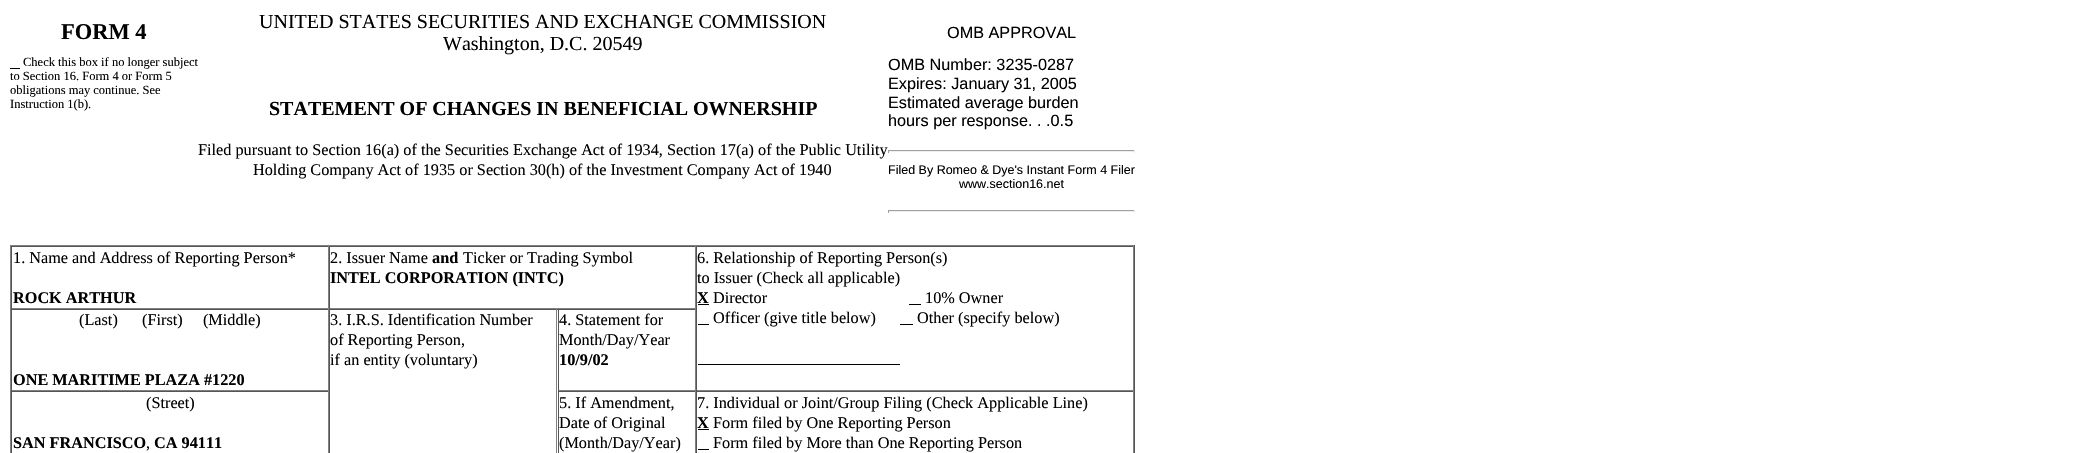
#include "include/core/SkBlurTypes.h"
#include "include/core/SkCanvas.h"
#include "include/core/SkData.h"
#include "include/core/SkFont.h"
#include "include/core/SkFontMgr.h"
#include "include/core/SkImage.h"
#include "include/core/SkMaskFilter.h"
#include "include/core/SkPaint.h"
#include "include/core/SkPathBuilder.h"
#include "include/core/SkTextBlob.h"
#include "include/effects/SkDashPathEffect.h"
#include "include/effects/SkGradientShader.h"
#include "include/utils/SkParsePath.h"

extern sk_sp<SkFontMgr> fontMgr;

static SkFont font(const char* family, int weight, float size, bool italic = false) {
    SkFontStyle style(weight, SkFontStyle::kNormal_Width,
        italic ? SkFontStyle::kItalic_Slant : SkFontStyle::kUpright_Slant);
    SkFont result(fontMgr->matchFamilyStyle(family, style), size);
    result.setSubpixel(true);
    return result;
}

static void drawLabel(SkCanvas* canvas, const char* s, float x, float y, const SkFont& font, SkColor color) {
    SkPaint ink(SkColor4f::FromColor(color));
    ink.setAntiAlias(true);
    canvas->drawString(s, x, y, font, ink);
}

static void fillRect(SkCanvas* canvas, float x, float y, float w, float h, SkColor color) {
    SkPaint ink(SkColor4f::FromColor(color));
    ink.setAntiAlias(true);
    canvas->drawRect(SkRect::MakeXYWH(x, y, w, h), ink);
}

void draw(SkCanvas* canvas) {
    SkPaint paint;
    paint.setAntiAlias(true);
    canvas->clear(0xFFFFFFFF);
    SkFont font1 = font("Liberation Serif", 700, 22.5f);
    drawLabel(canvas, "FORM 4", 61, 39, font1, 0xFF000000);
    SkFont font2 = font("Liberation Serif", 400, 20);
    drawLabel(canvas, "UNITED STATES SECURITIES AND EXCHANGE COMMISSION", 259, 28, font2, 0xFF000000);
    drawLabel(canvas, "Washington, D.C. 20549", 443, 50, font2, 0xFF000000);
    SkFont font3 = font("Liberation Sans", 400, 16.25f);
    drawLabel(canvas, "OMB APPROVAL", 947, 38, font3, 0xFF000000);
    SkFont font4 = font("Liberation Serif", 400, 12.5f);
    drawLabel(canvas, "Check this box if no longer subject", 23, 66, font4, 0xFF000000);
    fillRect(canvas, 10, 68, 10, 1, 0xFF000000);
    drawLabel(canvas, "to Section 16. Form 4 or Form 5", 10, 80, font4, 0xFF000000);
    drawLabel(canvas, "obligations may continue. See", 10, 94, font4, 0xFF000000);
    drawLabel(canvas, "Instruction 1(b).", 10, 108, font4, 0xFF000000);
    SkFont font5 = font("Liberation Serif", 700, 20);
    drawLabel(canvas, "STATEMENT OF CHANGES IN BENEFICIAL OWNERSHIP", 269, 115, font5, 0xFF000000);
    SkFont font6 = font("Liberation Serif", 400, 16.25f);
    drawLabel(canvas, "Filed pursuant to Section 16(a) of the Securities Exchange Act of 1934, Section 17(a) of the Public Utility", 198, 155, font6, 0xFF000000);
    drawLabel(canvas, "Holding Company Act of 1935 or Section 30(h) of the Investment Company Act of 1940", 253, 175, font6, 0xFF000000);
    drawLabel(canvas, "OMB Number: 3235-0287", 888, 70, font3, 0xFF000000);
    drawLabel(canvas, "Expires: January 31, 2005", 888, 89, font3, 0xFF000000);
    drawLabel(canvas, "Estimated average burden", 888, 108, font3, 0xFF000000);
    drawLabel(canvas, "hours per response. . .0.5", 888, 126, font3, 0xFF000000);
    fillRect(canvas, 888, 150, 247, 1, 0xFF9F9F9F);
    fillRect(canvas, 1134, 150, 1, 3, 0xFFEEEEEE);
    fillRect(canvas, 888, 151, 247, 1, 0xFFEEEEEE);
    fillRect(canvas, 888, 150, 1, 3, 0xFF9F9F9F);
    SkFont font7 = font("Liberation Sans", 400, 12.5f);
    drawLabel(canvas, "Filed By Romeo & Dye's Instant Form 4 Filer", 888, 174, font7, 0xFF000000);
    drawLabel(canvas, "www.section16.net", 959, 188, font7, 0xFF000000);
    fillRect(canvas, 888, 210, 247, 1, 0xFF9F9F9F);
    fillRect(canvas, 1134, 210, 1, 3, 0xFFEEEEEE);
    fillRect(canvas, 888, 211, 247, 1, 0xFFEEEEEE);
    fillRect(canvas, 888, 210, 1, 3, 0xFF9F9F9F);
    fillRect(canvas, 10, 245, 1125, 1, 0xFF808080);
    fillRect(canvas, 1134, 245, 1, 208, 0xFF555555);
    fillRect(canvas, 10, 245, 1, 208, 0xFF808080);
    fillRect(canvas, 11, 246, 1123, 1, 0xFF555555);
    fillRect(canvas, 328, 246, 1, 63, 0xFF808080);
    fillRect(canvas, 11, 308, 318, 1, 0xFF808080);
    fillRect(canvas, 11, 246, 1, 63, 0xFF555555);
    drawLabel(canvas, "1. Name and Address of Reporting Person*", 13, 263, font6, 0xFF000000);
    SkFont font8 = font("Liberation Serif", 700, 16.25f);
    drawLabel(canvas, "ROCK ARTHUR", 13, 303, font8, 0xFF000000);
    fillRect(canvas, 695, 246, 1, 63, 0xFF808080);
    fillRect(canvas, 329, 308, 367, 1, 0xFF808080);
    fillRect(canvas, 329, 246, 1, 63, 0xFF555555);
    drawLabel(canvas, "2. Issuer Name", 330, 263, font6, 0xFF000000);
    drawLabel(canvas, "and", 432, 263, font8, 0xFF000000);
    drawLabel(canvas, "Ticker or Trading Symbol", 463, 263, font6, 0xFF000000);
    drawLabel(canvas, "INTEL CORPORATION (INTC)", 330, 283, font8, 0xFF000000);
    fillRect(canvas, 1133, 246, 1, 145, 0xFF808080);
    fillRect(canvas, 696, 390, 438, 1, 0xFF808080);
    fillRect(canvas, 696, 246, 1, 145, 0xFF555555);
    drawLabel(canvas, "6. Relationship of Reporting Person(s)", 697, 263, font6, 0xFF000000);
    drawLabel(canvas, "to Issuer (Check all applicable)", 697, 283, font6, 0xFF000000);
    drawLabel(canvas, "X", 697, 303, font8, 0xFF000000);
    fillRect(canvas, 698, 304, 11, 1, 0xFF000000);
    drawLabel(canvas, "Director", 713, 303, font6, 0xFF000000);
    drawLabel(canvas, "10% Owner", 925, 303, font6, 0xFF000000);
    fillRect(canvas, 909, 304, 12, 1, 0xFF000000);
    drawLabel(canvas, "Officer (give title below)", 713, 323, font6, 0xFF000000);
    fillRect(canvas, 698, 324, 11, 1, 0xFF000000);
    drawLabel(canvas, "Other (specify below)", 917, 323, font6, 0xFF000000);
    fillRect(canvas, 900, 324, 13, 1, 0xFF000000);
    fillRect(canvas, 698, 364, 202, 1, 0xFF000000);
    fillRect(canvas, 11, 309, 685, 1, 0xFF555555);
    fillRect(canvas, 328, 309, 1, 82, 0xFF808080);
    fillRect(canvas, 11, 390, 318, 1, 0xFF808080);
    fillRect(canvas, 11, 309, 1, 82, 0xFF555555);
    drawLabel(canvas, "(Last)", 79, 325, font6, 0xFF000000);
    drawLabel(canvas, "(First)     (Middle)", 142, 325, font6, 0xFF000000);
    drawLabel(canvas, "ONE MARITIME PLAZA #1220", 13, 385, font8, 0xFF000000);
    fillRect(canvas, 556, 309, 1, 144, 0xFF808080);
    fillRect(canvas, 329, 309, 1, 144, 0xFF555555);
    drawLabel(canvas, "3. I.R.S. Identification Number", 330, 325, font6, 0xFF000000);
    drawLabel(canvas, "of Reporting Person,", 330, 345, font6, 0xFF000000);
    drawLabel(canvas, "if an entity (voluntary)", 330, 365, font6, 0xFF000000);
    fillRect(canvas, 695, 309, 1, 82, 0xFF808080);
    fillRect(canvas, 558, 390, 138, 1, 0xFF808080);
    fillRect(canvas, 558, 309, 1, 82, 0xFF555555);
    drawLabel(canvas, "4. Statement for", 559, 325, font6, 0xFF000000);
    drawLabel(canvas, "Month/Day/Year", 559, 345, font6, 0xFF000000);
    drawLabel(canvas, "10/9/02", 559, 365, font8, 0xFF000000);
    fillRect(canvas, 11, 391, 318, 1, 0xFF555555);
    fillRect(canvas, 328, 391, 1, 62, 0xFF808080);
    fillRect(canvas, 11, 391, 1, 62, 0xFF555555);
    drawLabel(canvas, "(Street)", 146, 408, font6, 0xFF000000);
    drawLabel(canvas, "SAN FRANCISCO", 13, 448, font8, 0xFF000000);
    drawLabel(canvas, ",", 146, 448, font6, 0xFF000000);
    drawLabel(canvas, "CA 94111", 154, 448, font8, 0xFF000000);
    fillRect(canvas, 558, 391, 576, 1, 0xFF555555);
    fillRect(canvas, 695, 391, 1, 62, 0xFF808080);
    fillRect(canvas, 558, 391, 1, 62, 0xFF555555);
    drawLabel(canvas, "5. If Amendment,", 559, 408, font6, 0xFF000000);
    drawLabel(canvas, "Date of Original", 559, 428, font6, 0xFF000000);
    drawLabel(canvas, "(Month/Day/Year)", 559, 448, font6, 0xFF000000);
    fillRect(canvas, 1133, 391, 1, 62, 0xFF808080);
    fillRect(canvas, 696, 391, 1, 62, 0xFF555555);
    drawLabel(canvas, "7. Individual or Joint/Group Filing (Check Applicable Line)", 697, 408, font6, 0xFF000000);
    drawLabel(canvas, "X", 697, 428, font8, 0xFF000000);
    fillRect(canvas, 698, 429, 11, 1, 0xFF000000);
    drawLabel(canvas, "Form filed by One Reporting Person", 713, 428, font6, 0xFF000000);
    drawLabel(canvas, "Form filed by More than One Reporting Person", 713, 448, font6, 0xFF000000);
    fillRect(canvas, 698, 449, 11, 1, 0xFF000000);
}
